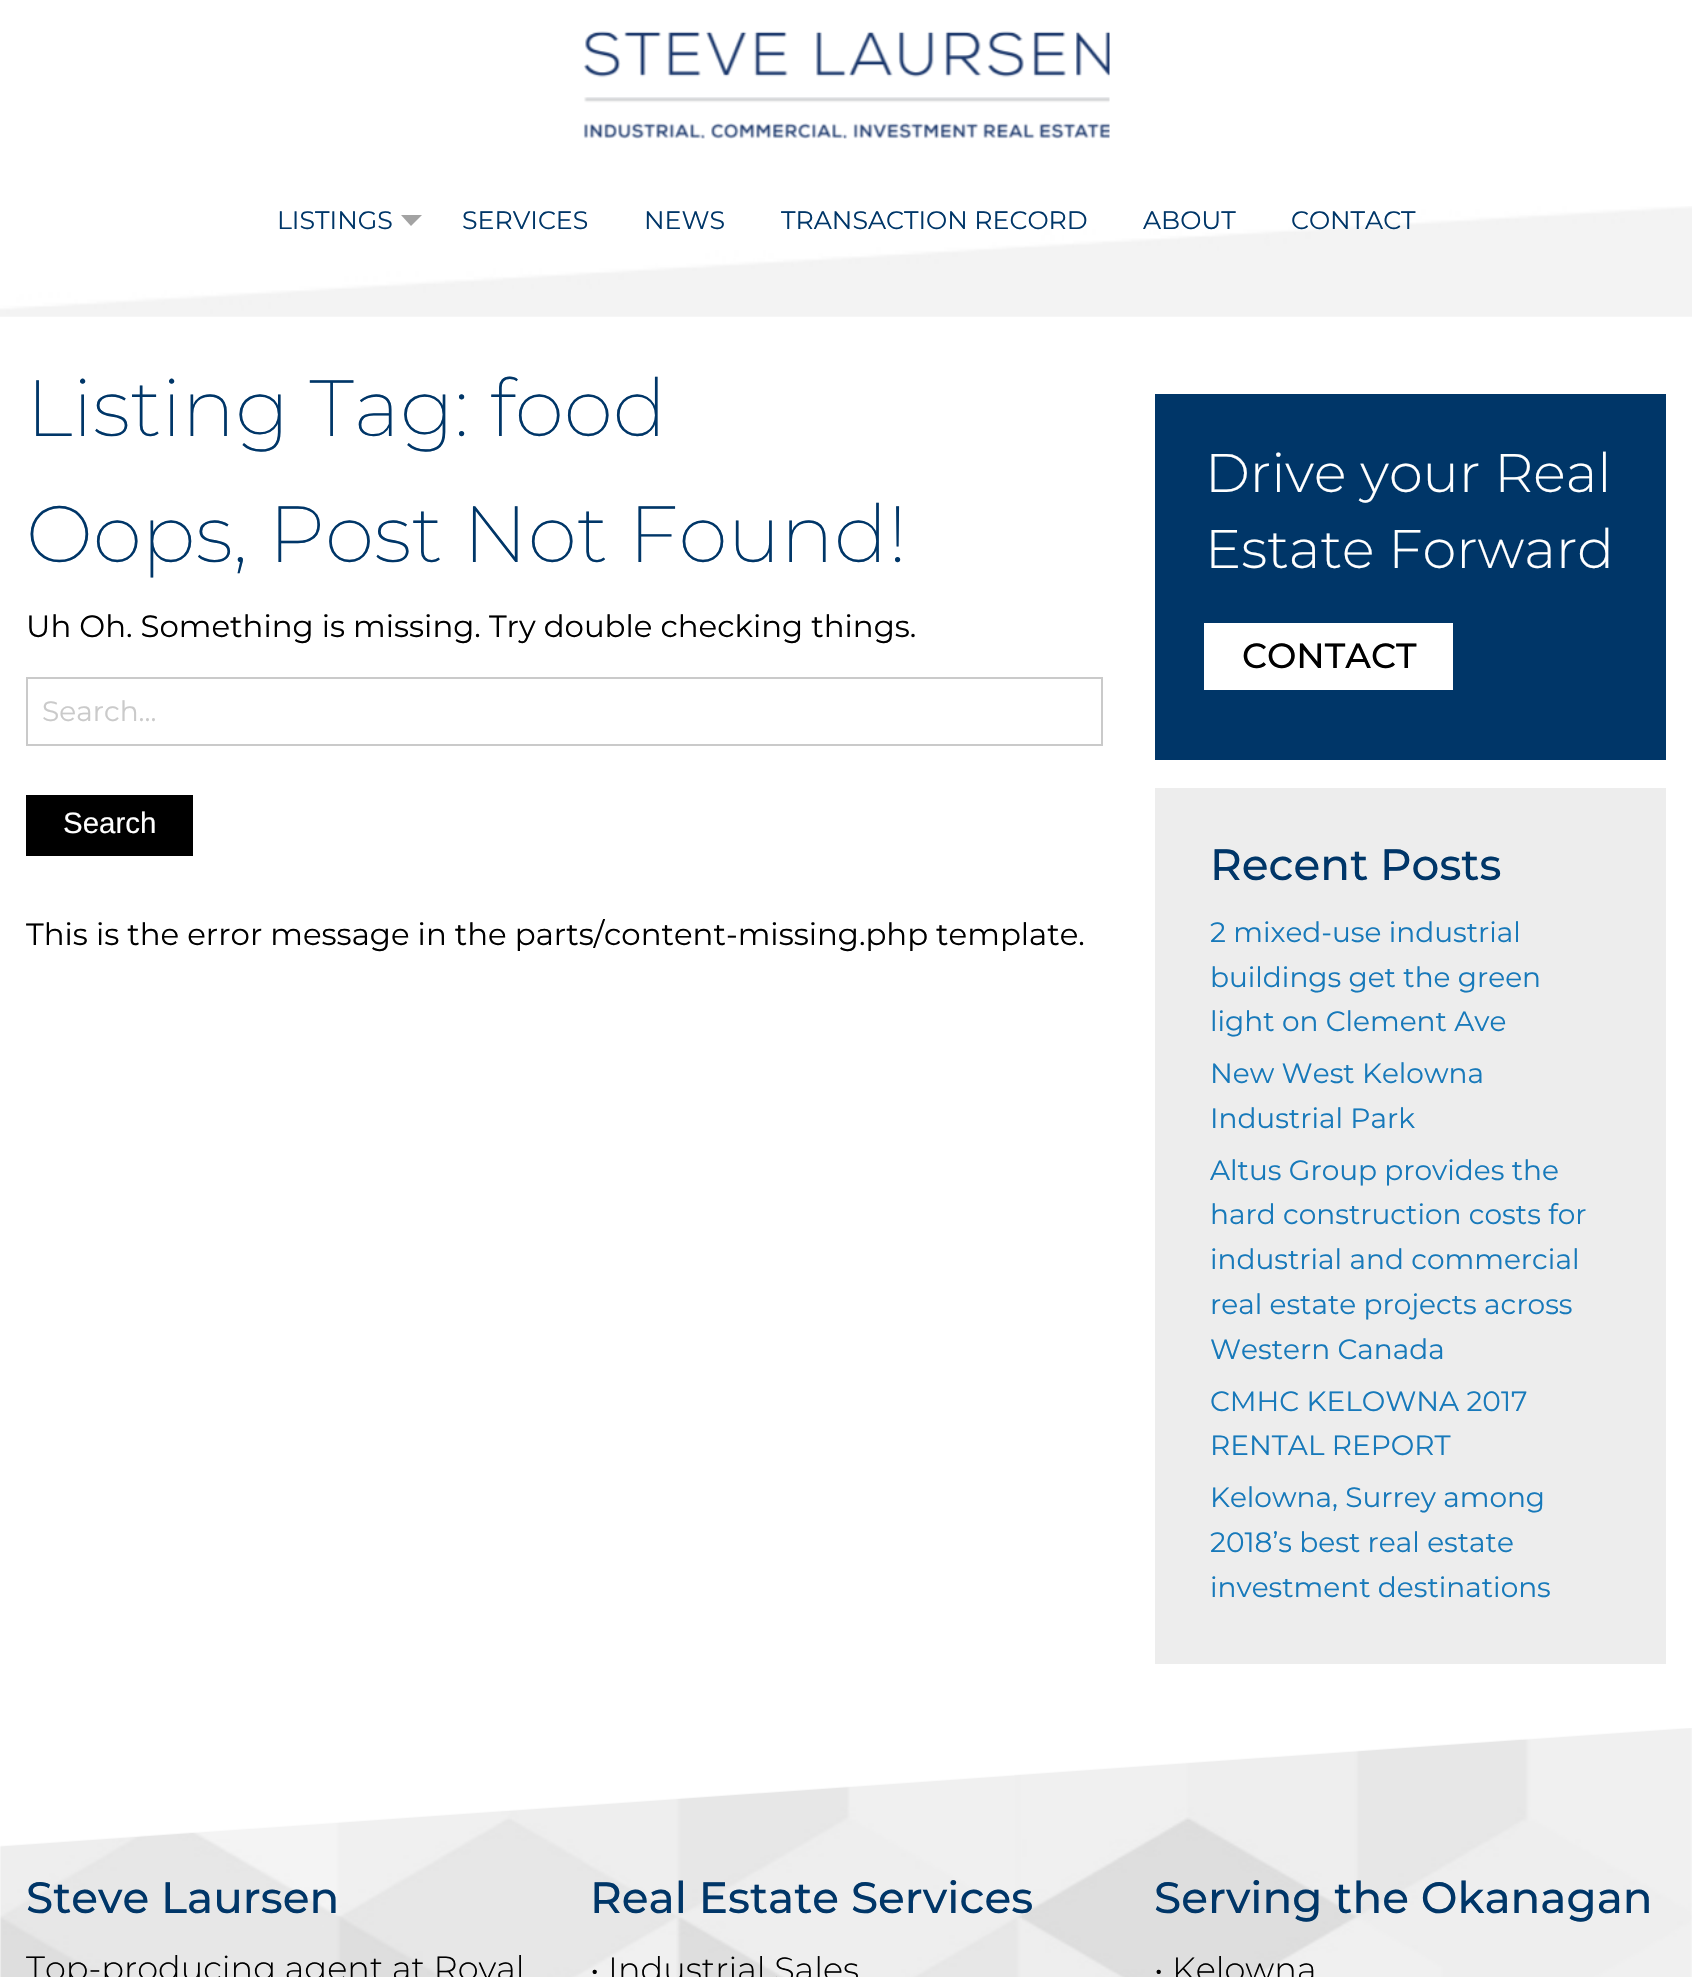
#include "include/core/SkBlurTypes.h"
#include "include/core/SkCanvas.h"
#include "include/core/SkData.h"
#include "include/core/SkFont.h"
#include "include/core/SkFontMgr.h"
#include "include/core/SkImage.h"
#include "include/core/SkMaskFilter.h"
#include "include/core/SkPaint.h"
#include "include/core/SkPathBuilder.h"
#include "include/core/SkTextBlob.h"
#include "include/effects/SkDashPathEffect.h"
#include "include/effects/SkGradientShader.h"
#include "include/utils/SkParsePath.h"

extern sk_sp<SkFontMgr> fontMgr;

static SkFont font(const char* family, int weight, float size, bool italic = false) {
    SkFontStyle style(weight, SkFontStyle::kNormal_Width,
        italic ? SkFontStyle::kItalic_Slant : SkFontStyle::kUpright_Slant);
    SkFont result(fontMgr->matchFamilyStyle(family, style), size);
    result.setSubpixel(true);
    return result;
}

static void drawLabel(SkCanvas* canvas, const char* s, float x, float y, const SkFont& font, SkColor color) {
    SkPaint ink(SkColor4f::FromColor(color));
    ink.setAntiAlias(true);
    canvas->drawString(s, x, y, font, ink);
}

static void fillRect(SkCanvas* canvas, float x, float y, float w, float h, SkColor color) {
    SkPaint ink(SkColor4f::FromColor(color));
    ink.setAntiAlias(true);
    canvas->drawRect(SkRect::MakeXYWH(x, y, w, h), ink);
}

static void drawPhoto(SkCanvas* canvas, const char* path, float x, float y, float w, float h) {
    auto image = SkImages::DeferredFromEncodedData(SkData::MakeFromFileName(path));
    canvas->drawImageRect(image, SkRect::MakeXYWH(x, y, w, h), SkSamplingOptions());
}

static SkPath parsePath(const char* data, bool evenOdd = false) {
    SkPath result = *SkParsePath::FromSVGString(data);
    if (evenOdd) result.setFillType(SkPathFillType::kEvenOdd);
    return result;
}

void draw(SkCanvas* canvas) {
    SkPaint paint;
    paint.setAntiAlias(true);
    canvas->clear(0xFFFFFFFF);
    drawPhoto(canvas, "assets/img1.png", 0, 206, 1692, 111);
    drawPhoto(canvas, "assets/img2.png", 583, 31, 527, 108);
    SkFont font1 = font("Montserrat", 400, 25.25f);
    drawLabel(canvas, "LISTINGS", 277, 229, font1, 0xFF003668);
    paint.setColor(0xFFA3A3A3);
    canvas->drawPath(parsePath("M401 215H422L411 226Z"), paint);
    drawLabel(canvas, "SERVICES", 462, 229, font1, 0xFF003668);
    drawLabel(canvas, "NEWS", 644, 229, font1, 0xFF003668);
    drawLabel(canvas, "TRANSACTION RECORD", 781, 229, font1, 0xFF003668);
    drawLabel(canvas, "ABOUT", 1143, 229, font1, 0xFF003668);
    drawLabel(canvas, "CONTACT", 1291, 229, font1, 0xFF003668);
    SkFont font2 = font("Montserrat", 200, 79.75f);
    drawLabel(canvas, "Listing Tag: food", 26, 436, font2, 0xFF003668);
    drawLabel(canvas, "Oops, Post Not Found!", 26, 562, font2, 0xFF003668);
    SkFont font3 = font("Montserrat", 400, 30.8f);
    drawLabel(canvas, "Uh Oh. Something is missing. Try double checking things.", 26, 637, font3, 0xFF000000);
    paint.setStroke(true);
    paint.setStrokeWidth(2);
    paint.setColor(0xFFCACACA);
    canvas->drawRect(SkRect::MakeXYWH(27, 678, 1075, 67), paint);
    SkFont font4 = font("Montserrat", 400, 28);
    drawLabel(canvas, "Search...", 42, 721, font4, 0xFFCACACA);
    fillRect(canvas, 26, 795, 167, 61, 0xFF000000);
    SkFont font5 = font("Liberation Sans", 400, 29.5f);
    drawLabel(canvas, "Search", 63, 833, font5, 0xFFFFFFFF);
    drawLabel(canvas, "This is the error message in the parts/content-missing.php template.", 26, 945, font3, 0xFF000000);
    fillRect(canvas, 1155, 394, 511, 366, 0xFF003668);
    SkFont font6 = font("Montserrat", 300, 54.25f);
    drawLabel(canvas, "Drive your Real", 1205, 492, font6, 0xFFFFFFFF);
    drawLabel(canvas, "Estate Forward", 1205, 568, font6, 0xFFFFFFFF);
    fillRect(canvas, 1204, 623, 249, 67, 0xFFFFFFFF);
    SkFont font7 = font("Montserrat", 500, 35);
    drawLabel(canvas, "CONTACT", 1242, 668, font7, 0xFF000000);
    fillRect(canvas, 1155, 788, 511, 876, 0xFFEDEDED);
    SkFont font8 = font("Montserrat", 500, 43.75f);
    drawLabel(canvas, "Recent Posts", 1210, 880, font8, 0xFF003668);
    drawLabel(canvas, "2 mixed-use industrial", 1210, 942, font4, 0xFF1779BA);
    drawLabel(canvas, "buildings get the green", 1210, 987, font4, 0xFF1779BA);
    drawLabel(canvas, "light on Clement Ave", 1210, 1031, font4, 0xFF1779BA);
    drawLabel(canvas, "New West Kelowna", 1210, 1083, font4, 0xFF1779BA);
    drawLabel(canvas, "Industrial Park", 1210, 1128, font4, 0xFF1779BA);
    drawLabel(canvas, "Altus Group provides the", 1210, 1180, font4, 0xFF1779BA);
    drawLabel(canvas, "hard construction costs for", 1210, 1224, font4, 0xFF1779BA);
    drawLabel(canvas, "industrial and commercial", 1210, 1269, font4, 0xFF1779BA);
    drawLabel(canvas, "real estate projects across", 1210, 1314, font4, 0xFF1779BA);
    drawLabel(canvas, "Western Canada", 1210, 1359, font4, 0xFF1779BA);
    drawLabel(canvas, "CMHC KELOWNA 2017", 1210, 1411, font4, 0xFF1779BA);
    drawLabel(canvas, "RENTAL REPORT", 1210, 1455, font4, 0xFF1779BA);
    drawLabel(canvas, "Kelowna, Surrey among", 1210, 1507, font4, 0xFF1779BA);
    drawLabel(canvas, "2018’s best real estate", 1210, 1552, font4, 0xFF1779BA);
    drawLabel(canvas, "investment destinations", 1210, 1597, font4, 0xFF1779BA);
    drawPhoto(canvas, "assets/img3.png", 0, 1728, 1692, 249);
    drawLabel(canvas, "Steve Laursen", 26, 1913, font8, 0xFF003668);
    SkFont font9 = font("Montserrat", 300, 33.6f);
    drawLabel(canvas, "Top-producing agent at Royal", 26, 1980, font9, 0xFF000000);
    drawLabel(canvas, "Real Estate Services", 590, 1913, font8, 0xFF003668);
    drawLabel(canvas, "• Industrial Sales", 590, 1981, font9, 0xFF000000);
    drawLabel(canvas, "Serving the Okanagan", 1154, 1913, font8, 0xFF003668);
    drawLabel(canvas, "• Kelowna", 1154, 1981, font9, 0xFF000000);
}
